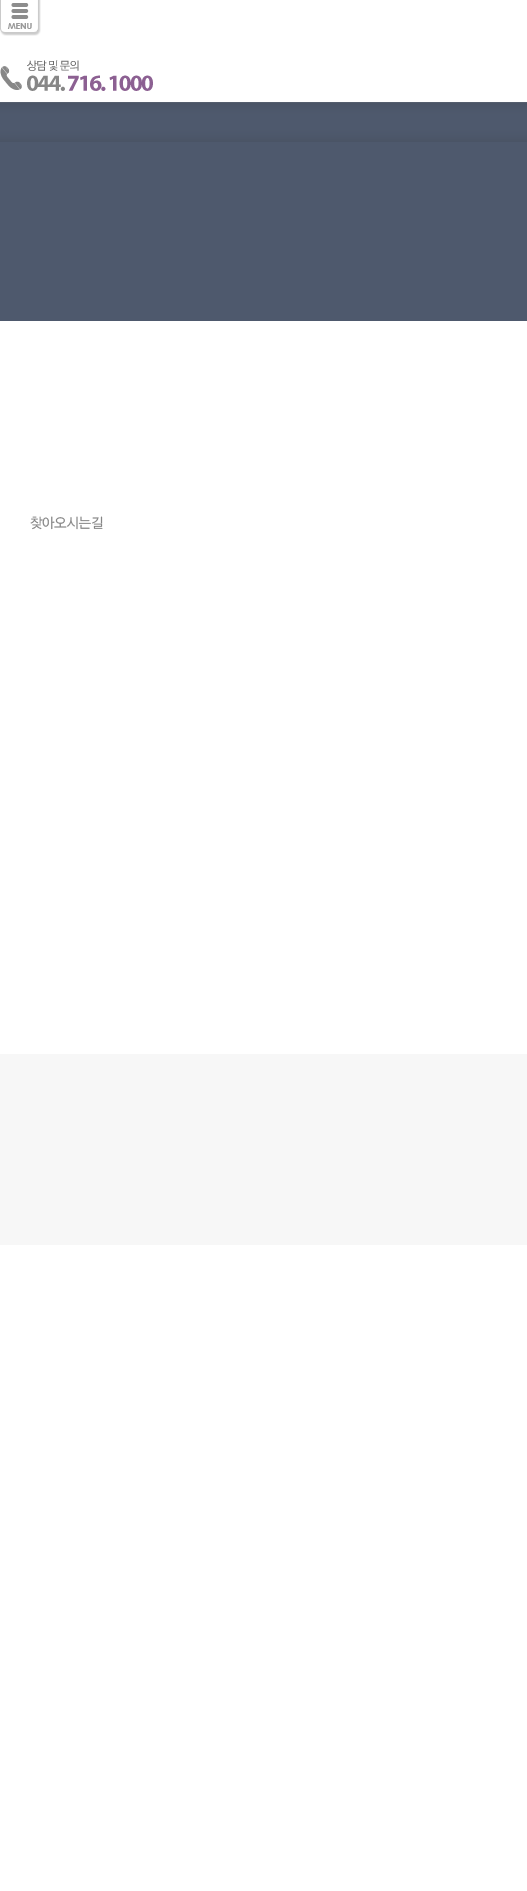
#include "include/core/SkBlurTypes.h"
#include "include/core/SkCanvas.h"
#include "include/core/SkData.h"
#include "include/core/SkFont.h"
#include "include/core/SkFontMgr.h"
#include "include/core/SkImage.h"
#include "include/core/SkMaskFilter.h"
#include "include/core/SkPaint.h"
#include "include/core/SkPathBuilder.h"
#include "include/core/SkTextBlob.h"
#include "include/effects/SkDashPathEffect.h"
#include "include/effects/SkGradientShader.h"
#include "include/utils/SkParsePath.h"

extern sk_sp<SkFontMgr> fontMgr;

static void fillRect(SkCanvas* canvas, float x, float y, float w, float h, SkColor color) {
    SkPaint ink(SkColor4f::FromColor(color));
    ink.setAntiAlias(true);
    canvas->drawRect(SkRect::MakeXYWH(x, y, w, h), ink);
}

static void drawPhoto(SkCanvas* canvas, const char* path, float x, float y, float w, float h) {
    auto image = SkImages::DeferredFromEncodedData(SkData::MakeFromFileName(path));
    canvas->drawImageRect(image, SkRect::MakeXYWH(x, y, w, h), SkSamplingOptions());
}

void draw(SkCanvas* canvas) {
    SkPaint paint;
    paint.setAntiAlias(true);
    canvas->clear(0xFFFFFFFF);
    drawPhoto(canvas, "assets/img1.png", 0, 0, 41, 36);
    drawPhoto(canvas, "assets/img2.png", 0, 60, 153, 31);
    drawPhoto(canvas, "assets/img3.png", 0, 102, 527, 40);
    fillRect(canvas, 0, 142, 527, 179, 0xFF4E596D);
    drawPhoto(canvas, "assets/img4.png", 30, 516, 73, 14);
    fillRect(canvas, 0, 1054, 527, 191, 0xFFF7F7F7);
}
